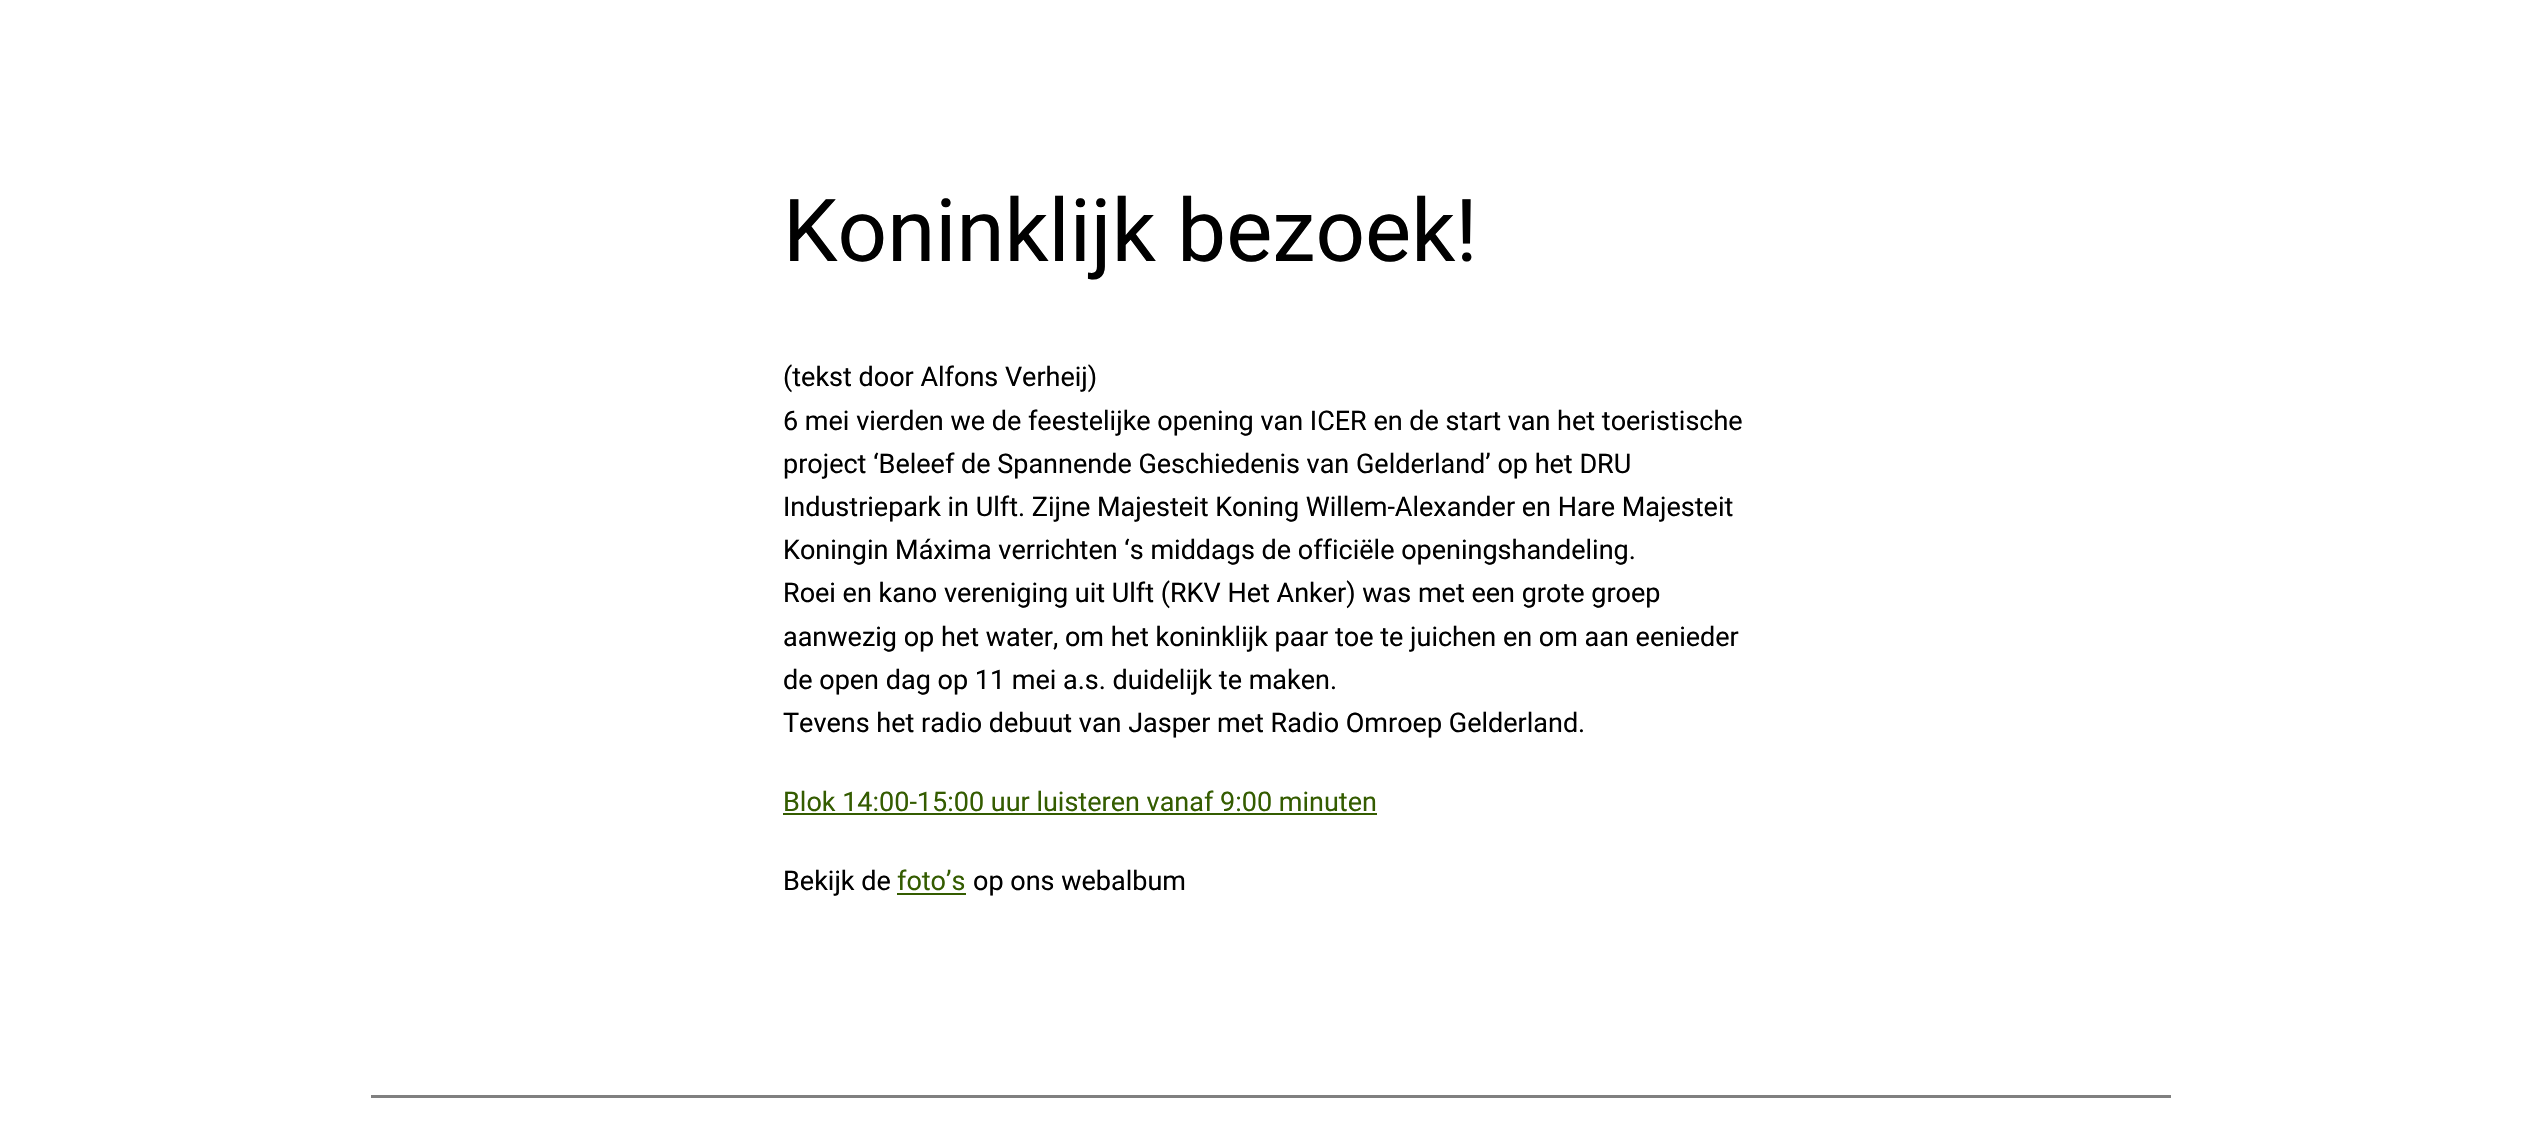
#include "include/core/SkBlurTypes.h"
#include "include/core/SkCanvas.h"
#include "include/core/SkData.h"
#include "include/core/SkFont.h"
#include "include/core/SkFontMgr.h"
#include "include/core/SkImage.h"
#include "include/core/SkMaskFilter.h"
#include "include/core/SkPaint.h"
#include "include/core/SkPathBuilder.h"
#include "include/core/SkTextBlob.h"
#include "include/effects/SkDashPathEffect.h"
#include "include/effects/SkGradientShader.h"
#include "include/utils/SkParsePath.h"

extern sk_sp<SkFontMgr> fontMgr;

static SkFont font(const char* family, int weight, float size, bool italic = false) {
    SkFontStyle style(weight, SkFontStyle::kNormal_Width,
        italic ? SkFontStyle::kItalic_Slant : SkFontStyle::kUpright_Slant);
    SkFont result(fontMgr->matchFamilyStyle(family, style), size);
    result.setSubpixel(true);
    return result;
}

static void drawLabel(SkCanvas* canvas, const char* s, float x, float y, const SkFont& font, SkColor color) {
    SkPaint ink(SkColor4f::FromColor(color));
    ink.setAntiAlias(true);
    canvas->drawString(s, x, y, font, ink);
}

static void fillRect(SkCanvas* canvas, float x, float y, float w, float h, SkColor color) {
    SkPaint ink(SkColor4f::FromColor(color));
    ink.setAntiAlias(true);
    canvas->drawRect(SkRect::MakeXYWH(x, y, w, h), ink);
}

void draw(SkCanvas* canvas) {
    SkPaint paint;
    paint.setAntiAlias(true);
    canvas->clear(0xFFFFFFFF);
    SkFont font1 = font("Roboto", 400, 87);
    drawLabel(canvas, "Koninklijk bezoek!", 783, 261, font1, 0xFF000000);
    SkFont font2 = font("Roboto", 400, 27);
    drawLabel(canvas, "(tekst door Alfons Verheij)", 783, 386, font2, 0xFF000000);
    drawLabel(canvas, "6 mei vierden we de feestelijke opening van ICER en de start van het toeristische", 783, 430, font2, 0xFF000000);
    drawLabel(canvas, "project ‘Beleef de Spannende Geschiedenis van Gelderland’ op het DRU", 783, 473, font2, 0xFF000000);
    drawLabel(canvas, "Industriepark in Ulft. Zijne Majesteit Koning Willem-Alexander en Hare Majesteit", 783, 516, font2, 0xFF000000);
    drawLabel(canvas, "Koningin Máxima verrichten ‘s middags de officiële openingshandeling.", 783, 559, font2, 0xFF000000);
    drawLabel(canvas, "Roei en kano vereniging uit Ulft (RKV Het Anker) was met een grote groep", 783, 602, font2, 0xFF000000);
    drawLabel(canvas, "aanwezig op het water, om het koninklijk paar toe te juichen en om aan eenieder", 783, 646, font2, 0xFF000000);
    drawLabel(canvas, "de open dag op 11 mei a.s. duidelijk te maken.", 783, 689, font2, 0xFF000000);
    drawLabel(canvas, "Tevens het radio debuut van Jasper met Radio Omroep Gelderland.", 783, 732, font2, 0xFF000000);
    drawLabel(canvas, "Blok 14:00-15:00 uur luisteren vanaf 9:00 minuten", 783, 811, font2, 0xFF345C00);
    fillRect(canvas, 783, 813, 594, 2, 0xFF345C00);
    drawLabel(canvas, "Bekijk de", 783, 890, font2, 0xFF000000);
    drawLabel(canvas, "foto’s", 897, 890, font2, 0xFF345C00);
    fillRect(canvas, 897, 893, 69, 2, 0xFF345C00);
    drawLabel(canvas, "op ons webalbum", 973, 890, font2, 0xFF000000);
    fillRect(canvas, 371, 1095, 1800, 3, 0xFF808080);
}
